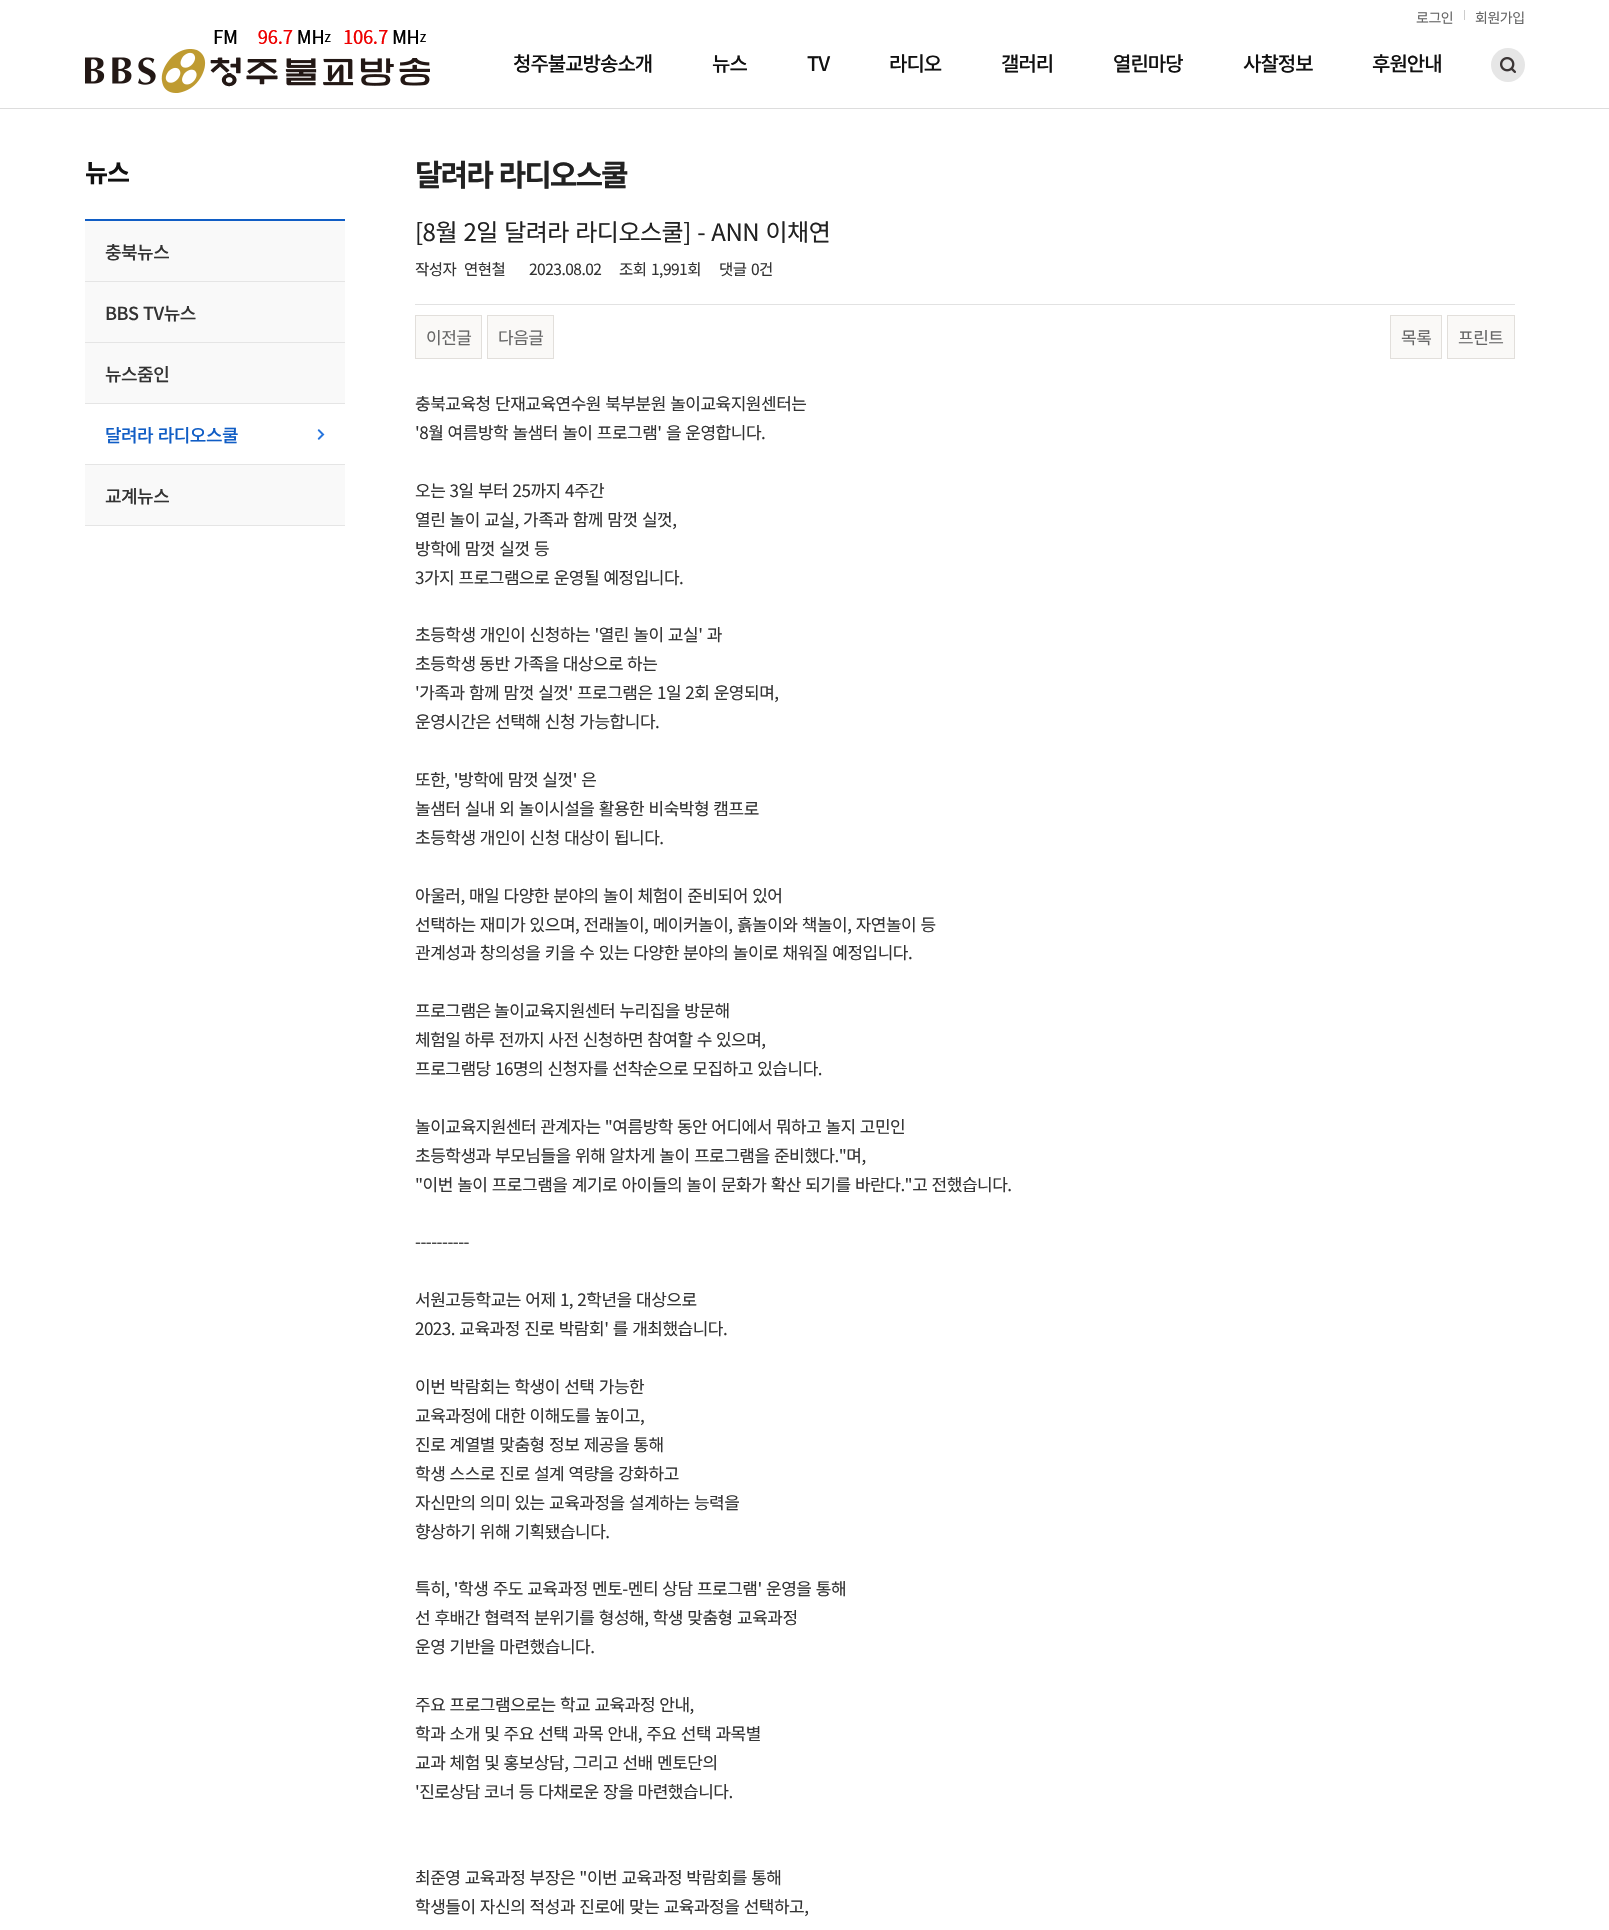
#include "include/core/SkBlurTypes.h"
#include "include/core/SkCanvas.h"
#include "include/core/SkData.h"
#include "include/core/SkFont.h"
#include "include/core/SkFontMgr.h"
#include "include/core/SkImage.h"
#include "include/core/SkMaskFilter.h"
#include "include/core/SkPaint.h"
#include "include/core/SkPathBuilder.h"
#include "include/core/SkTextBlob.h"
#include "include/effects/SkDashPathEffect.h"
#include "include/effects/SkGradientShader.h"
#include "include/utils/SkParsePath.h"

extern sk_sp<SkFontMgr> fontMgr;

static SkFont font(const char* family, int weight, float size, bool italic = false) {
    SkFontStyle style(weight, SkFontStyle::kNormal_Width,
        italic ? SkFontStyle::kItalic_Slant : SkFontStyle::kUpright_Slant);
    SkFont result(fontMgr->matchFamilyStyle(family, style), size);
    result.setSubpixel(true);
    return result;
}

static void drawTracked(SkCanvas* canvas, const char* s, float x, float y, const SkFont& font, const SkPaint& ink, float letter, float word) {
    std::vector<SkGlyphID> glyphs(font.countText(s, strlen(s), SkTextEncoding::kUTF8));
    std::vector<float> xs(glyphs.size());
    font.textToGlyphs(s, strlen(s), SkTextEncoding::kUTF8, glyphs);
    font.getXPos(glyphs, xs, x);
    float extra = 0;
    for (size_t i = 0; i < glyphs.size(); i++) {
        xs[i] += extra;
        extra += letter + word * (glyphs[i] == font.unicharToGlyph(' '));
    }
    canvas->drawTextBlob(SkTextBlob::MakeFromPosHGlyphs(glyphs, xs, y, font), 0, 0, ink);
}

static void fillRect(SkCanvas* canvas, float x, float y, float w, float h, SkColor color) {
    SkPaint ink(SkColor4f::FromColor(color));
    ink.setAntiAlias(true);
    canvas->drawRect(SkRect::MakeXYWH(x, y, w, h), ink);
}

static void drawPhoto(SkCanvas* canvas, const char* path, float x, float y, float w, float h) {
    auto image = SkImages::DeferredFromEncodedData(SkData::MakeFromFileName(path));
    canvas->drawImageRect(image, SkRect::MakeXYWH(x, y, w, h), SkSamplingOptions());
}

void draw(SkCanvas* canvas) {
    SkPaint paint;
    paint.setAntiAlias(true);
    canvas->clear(0xFFFFFFFF);
    SkFont font1 = font("Noto Sans KR", 400, 14);
    paint.setColor(0xFF666666);
    drawTracked(canvas, "로그인", 1416, 23, font1, paint, -0.5f, 0);
    fillRect(canvas, 1464, 10, 1, 10, 0xFFCCCCCC);
    drawTracked(canvas, "회원가입", 1475, 23, font1, paint, -0.5f, 0);
    fillRect(canvas, 0, 108, 1609, 1, 0xFFDDDDDD);
    drawPhoto(canvas, "assets/img1.png", 85, 30, 345, 63);
    SkFont font2 = font("Noto Sans KR", 500, 20);
    paint.setColor(0xFF111111);
    drawTracked(canvas, "청주불교방송소개", 513, 71, font2, paint, -1, 0);
    drawTracked(canvas, "뉴스", 712, 71, font2, paint, -1, 0);
    drawTracked(canvas, "TV", 807, 71, font2, paint, -1, 0);
    drawTracked(canvas, "라디오", 889, 71, font2, paint, -1, 0);
    drawTracked(canvas, "갤러리", 1001, 71, font2, paint, -1, 0);
    drawTracked(canvas, "열린마당", 1113, 71, font2, paint, -1, 0);
    drawTracked(canvas, "사찰정보", 1243, 71, font2, paint, -1, 0);
    drawTracked(canvas, "후원안내", 1372, 71, font2, paint, -1, 0);
    paint.setColor(0xFFE6E6E6);
    canvas->drawCircle(1508, 65, 17, paint);
    drawPhoto(canvas, "assets/img2.png", 1500, 57, 16, 16);
    fillRect(canvas, 85, 219, 260, 2, 0xFF105DC5);
    SkFont font3 = font("Noto Sans KR", 700, 25);
    paint.setColor(0xFF111111);
    drawTracked(canvas, "뉴스", 85, 182, font3, paint, -1, 0);
    fillRect(canvas, 85, 221, 260, 60, 0xFFF9F9F9);
    fillRect(canvas, 85, 281, 260, 1, 0xFFE5E5E5);
    SkFont font4 = font("Noto Sans KR", 500, 18);
    paint.setColor(0xFF333333);
    drawTracked(canvas, "충북뉴스", 105, 259, font4, paint, -0.5f, 0);
    fillRect(canvas, 85, 282, 260, 60, 0xFFF9F9F9);
    fillRect(canvas, 85, 342, 260, 1, 0xFFE5E5E5);
    drawTracked(canvas, "BBS TV뉴스", 105, 320, font4, paint, -0.5f, 1);
    fillRect(canvas, 85, 343, 260, 60, 0xFFF9F9F9);
    fillRect(canvas, 85, 403, 260, 1, 0xFFE5E5E5);
    drawTracked(canvas, "뉴스줌인", 105, 381, font4, paint, -0.5f, 0);
    drawPhoto(canvas, "assets/img3.png", 317, 429, 8, 11);
    fillRect(canvas, 85, 464, 260, 1, 0xFFE5E5E5);
    paint.setColor(0xFF105DC5);
    drawTracked(canvas, "달려라 라디오스쿨", 105, 442, font4, paint, -0.5f, 1);
    fillRect(canvas, 85, 465, 260, 60, 0xFFF9F9F9);
    fillRect(canvas, 85, 525, 260, 1, 0xFFE5E5E5);
    paint.setColor(0xFF333333);
    drawTracked(canvas, "교계뉴스", 105, 503, font4, paint, -0.5f, 0);
    SkFont font5 = font("Noto Sans KR", 700, 30);
    paint.setColor(0xFF222222);
    drawTracked(canvas, "달려라 라디오스쿨", 415, 186, font5, paint, -2, 2);
    SkFont font6 = font("Noto Sans KR", 400, 24);
    drawTracked(canvas, "[8월 2일 달려라 라디오스쿨] - ANN 이채연", 415, 241, font6, paint, -0.5f, 1.5f);
    fillRect(canvas, 415, 304, 1100, 1, 0xFFE2E2E2);
    SkFont font7 = font("Noto Sans KR", 400, 15.5f);
    paint.setColor(0xFF333333);
    drawTracked(canvas, "작성자", 415, 275, font7, paint, -0.5f, 0);
    drawTracked(canvas, "연현철", 464, 275, font7, paint, -0.5f, 0);
    drawTracked(canvas, "2023.08.02", 529, 275, font7, paint, -0.5f, 0);
    drawTracked(canvas, "조회", 619, 275, font7, paint, -0.5f, 0);
    drawTracked(canvas, "1,991회", 651, 275, font7, paint, -0.5f, 0);
    drawTracked(canvas, "댓글", 719, 275, font7, paint, -0.5f, 0);
    drawTracked(canvas, "0건", 751, 275, font7, paint, -0.5f, 0);
    paint.setColor(0xFFFAF9F7);
    canvas->drawRect(SkRect::MakeXYWH(415.5f, 315.5f, 66, 43), paint);
    paint.setStroke(true);
    paint.setStrokeWidth(1);
    paint.setColor(0xFFE2DFDB);
    canvas->drawRect(SkRect::MakeXYWH(415.5f, 315.5f, 66, 43), paint);
    SkFont font8 = font("Noto Sans KR", 400, 17);
    paint.setStroke(false);
    paint.setColor(0xFF666666);
    drawTracked(canvas, "이전글", 426, 344, font8, paint, -0.5f, 0);
    paint.setColor(0xFFFAF9F7);
    canvas->drawRect(SkRect::MakeXYWH(487.5f, 315.5f, 66, 43), paint);
    paint.setStroke(true);
    paint.setColor(0xFFE2DFDB);
    canvas->drawRect(SkRect::MakeXYWH(487.5f, 315.5f, 66, 43), paint);
    paint.setStroke(false);
    paint.setColor(0xFF666666);
    drawTracked(canvas, "다음글", 498, 344, font8, paint, -0.5f, 0);
    paint.setColor(0xFFFAF9F7);
    canvas->drawRect(SkRect::MakeXYWH(1390.5f, 315.5f, 51, 43), paint);
    paint.setStroke(true);
    paint.setColor(0xFFE2DFDB);
    canvas->drawRect(SkRect::MakeXYWH(1390.5f, 315.5f, 51, 43), paint);
    paint.setStroke(false);
    paint.setColor(0xFF666666);
    drawTracked(canvas, "목록", 1401, 344, font8, paint, -0.5f, 0);
    paint.setColor(0xFFFAF9F7);
    canvas->drawRect(SkRect::MakeXYWH(1447.5f, 315.5f, 67, 43), paint);
    paint.setStroke(true);
    paint.setColor(0xFFE2DFDB);
    canvas->drawRect(SkRect::MakeXYWH(1447.5f, 315.5f, 67, 43), paint);
    paint.setStroke(false);
    paint.setColor(0xFF666666);
    drawTracked(canvas, "프린트", 1458, 344, font8, paint, -0.5f, 0);
    paint.setColor(0xFF333333);
    drawTracked(canvas, "충북교육청 단재교육연수원 북부분원 놀이교육지원센터는", 415, 410, font8, paint, -0.5f, 1);
    drawTracked(canvas, "'8월 여름방학 놀샘터 놀이 프로그램' 을 운영합니다.", 415, 439, font8, paint, -0.5f, 1);
    drawTracked(canvas, "오는 3일 부터 25까지 4주간", 415, 497, font8, paint, -0.5f, 1);
    drawTracked(canvas, "열린 놀이 교실, 가족과 함께 맘껏 실껏,", 415, 526, font8, paint, -0.5f, 1);
    drawTracked(canvas, "방학에 맘껏 실껏 등", 415, 555, font8, paint, -0.5f, 1);
    drawTracked(canvas, "3가지 프로그램으로 운영될 예정입니다.", 415, 584, font8, paint, -0.5f, 1);
    drawTracked(canvas, "초등학생 개인이 신청하는 '열린 놀이 교실' 과", 415, 641, font8, paint, -0.5f, 1);
    drawTracked(canvas, "초등학생 동반 가족을 대상으로 하는", 415, 670, font8, paint, -0.5f, 0.5f);
    drawTracked(canvas, "'가족과 함께 맘껏 실껏' 프로그램은 1일 2회 운영되며,", 415, 699, font8, paint, -0.5f, 1);
    drawTracked(canvas, "운영시간은 선택해 신청 가능합니다.", 415, 728, font8, paint, -0.5f, 1);
    drawTracked(canvas, "또한, '방학에 맘껏 실껏' 은", 415, 786, font8, paint, -0.5f, 1);
    drawTracked(canvas, "놀샘터 실내 외 놀이시설을 활용한 비숙박형 캠프로", 415, 815, font8, paint, -0.5f, 1);
    drawTracked(canvas, "초등학생 개인이 신청 대상이 됩니다.", 415, 844, font8, paint, -0.5f, 1);
    drawTracked(canvas, "아울러, 매일 다양한 분야의 놀이 체험이 준비되어 있어", 415, 902, font8, paint, -0.5f, 1);
    drawTracked(canvas, "선택하는 재미가 있으며, 전래놀이, 메이커놀이, 흙놀이와 책놀이, 자연놀이 등", 415, 931, font8, paint, -0.5f, 1);
    drawTracked(canvas, "관계성과 창의성을 키을 수 있는 다양한 분야의 놀이로 채워질 예정입니다.", 415, 959, font8, paint, -0.5f, 1);
    drawTracked(canvas, "프로그램은", 415, 1017, font8, paint, -0.5f, 0);
    drawTracked(canvas, "놀이교육지원센터 누리집을 방문해", 494, 1017, font8, paint, -0.5f, 1);
    drawTracked(canvas, "체험일 하루 전까지 사전 신청하면 참여할 수 있으며,", 415, 1046, font8, paint, -0.5f, 0.75f);
    drawTracked(canvas, "프로그램당 16명의 신청자를 선착순으로 모집하고 있습니다.", 415, 1075, font8, paint, -0.5f, 1);
    drawTracked(canvas, "놀이교육지원센터 관계자는 \"여름방학 동안 어디에서 뭐하고 놀지 고민인", 415, 1133, font8, paint, -0.5f, 0.75f);
    drawTracked(canvas, "초등학생과 부모님들을 위해 알차게 놀이 프로그램을 준비했다.\"며,", 415, 1162, font8, paint, -0.5f, 1);
    drawTracked(canvas, "\"이번 놀이 프로그램을 계기로 아이들의 놀이 문화가 확산 되기를 바란다.\"고 전했습니다.", 415, 1191, font8, paint, -0.5f, 1);
    drawTracked(canvas, "----------", 415, 1248, font8, paint, -0.5f, 0);
    drawTracked(canvas, "서원고등학교는 어제 1, 2학년을 대상으로", 415, 1306, font8, paint, -0.5f, 1);
    drawTracked(canvas, "2023. 교육과정 진로 박람회' 를 개최했습니다.", 415, 1335, font8, paint, -0.5f, 1);
    drawTracked(canvas, "이번 박람회는 학생이 선택 가능한", 415, 1393, font8, paint, -0.5f, 1);
    drawTracked(canvas, "교육과정에 대한 이해도를 높이고,", 415, 1422, font8, paint, -0.5f, 1);
    drawTracked(canvas, "진로 계열별 맞춤형 정보 제공을 통해", 415, 1451, font8, paint, -0.5f, 1);
    drawTracked(canvas, "학생 스스로 진로 설계 역량을 강화하고", 415, 1480, font8, paint, -0.5f, 1);
    drawTracked(canvas, "자신만의 의미 있는 교육과정을 설계하는 능력을", 415, 1509, font8, paint, -0.5f, 1);
    drawTracked(canvas, "향상하기 위해 기획됐습니다.", 415, 1538, font8, paint, -0.5f, 1);
    drawTracked(canvas, "특히, '학생 주도 교육과정 멘토-멘티 상담 프로그램' 운영을 통해", 415, 1595, font8, paint, -0.5f, 1);
    drawTracked(canvas, "선 후배간 협력적 분위기를 형성해, 학생 맞춤형 교육과정", 415, 1624, font8, paint, -0.5f, 1);
    drawTracked(canvas, "운영 기반을 마련했습니다.", 415, 1653, font8, paint, -0.5f, 1);
    drawTracked(canvas, "주요 프로그램으로는 학교 교육과정 안내,", 415, 1711, font8, paint, -0.5f, 1);
    drawTracked(canvas, "학과 소개 및 주요 선택 과목 안내, 주요 선택 과목별", 415, 1740, font8, paint, -0.5f, 1);
    drawTracked(canvas, "교과 체험 및 홍보상담, 그리고 선배 멘토단의", 415, 1769, font8, paint, -0.5f, 1);
    drawTracked(canvas, "'진로상담 코너 등 다채로운 장을 마련했습니다.", 415, 1798, font8, paint, -0.5f, 1);
    drawTracked(canvas, "최준영 교육과정 부장은 \"이번 교육과정 박람회를 통해", 415, 1884, font8, paint, -0.5f, 1);
    drawTracked(canvas, "학생들이 자신의 적성과 진로에 맞는 교육과정을 선택하고,", 415, 1913, font8, paint, -0.5f, 1);
}
